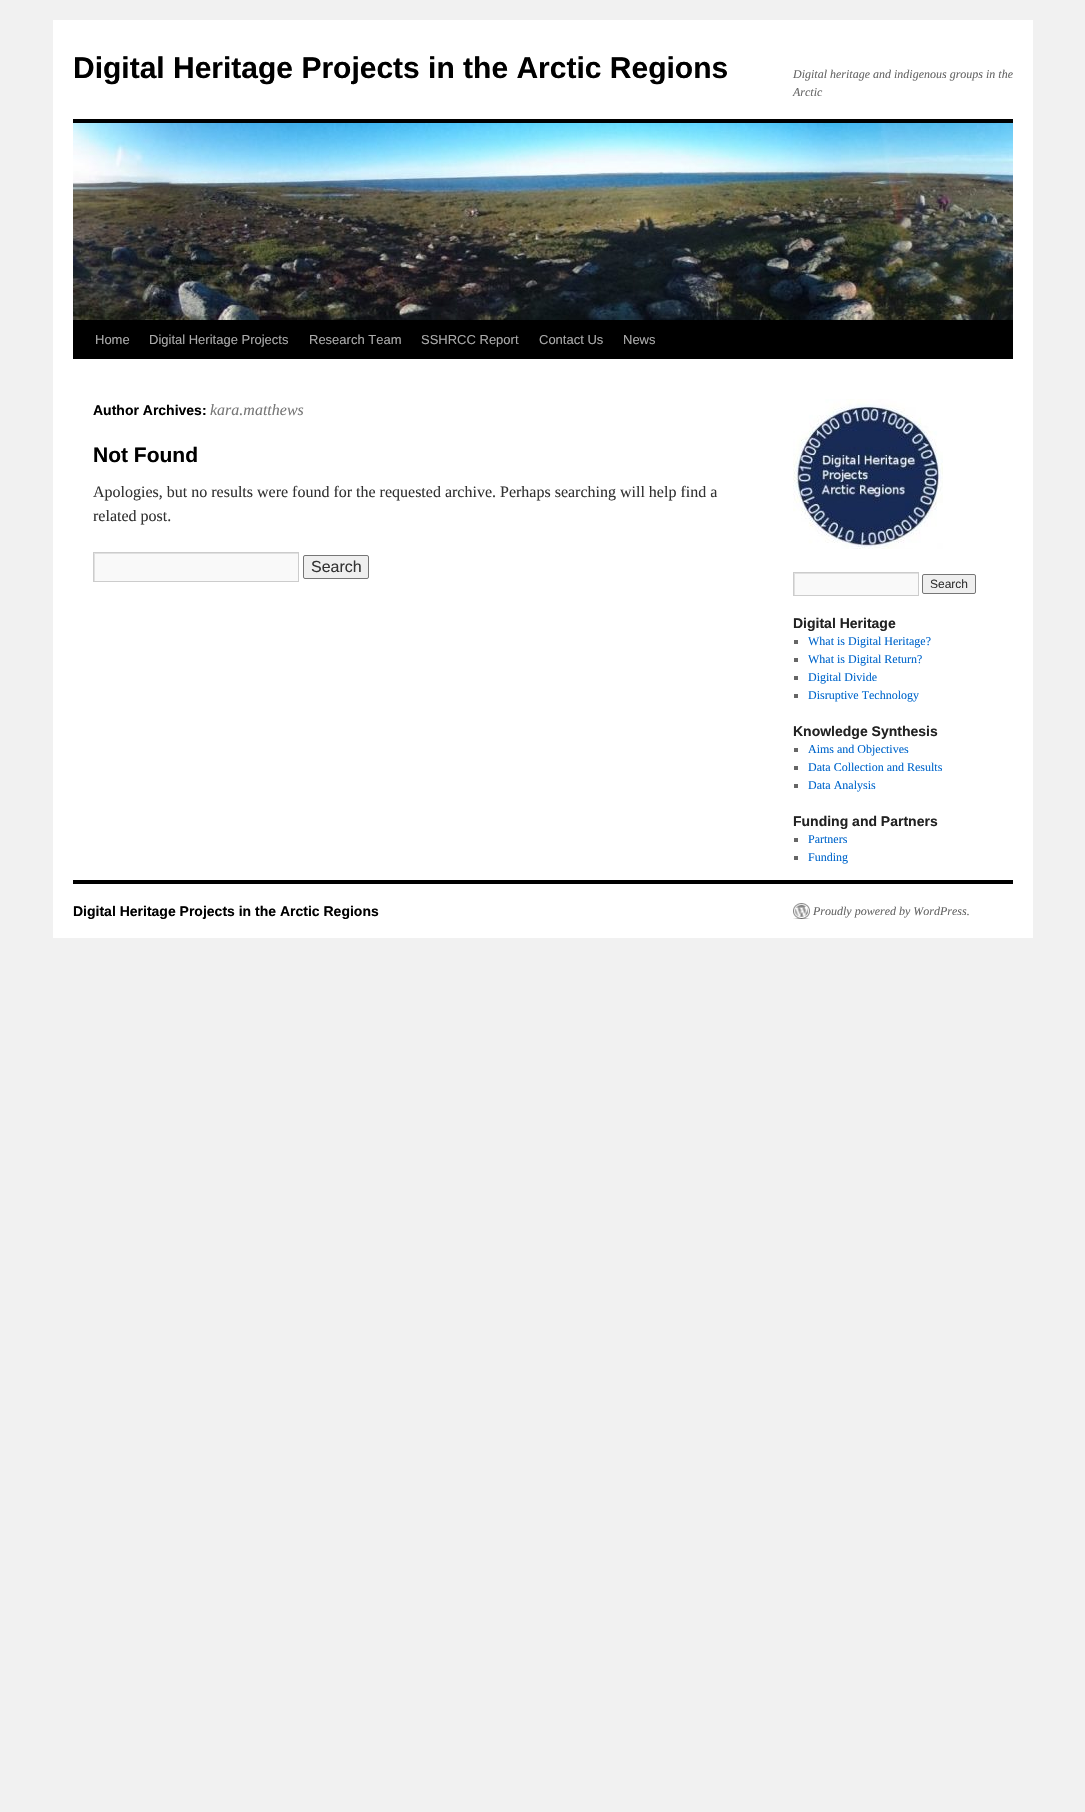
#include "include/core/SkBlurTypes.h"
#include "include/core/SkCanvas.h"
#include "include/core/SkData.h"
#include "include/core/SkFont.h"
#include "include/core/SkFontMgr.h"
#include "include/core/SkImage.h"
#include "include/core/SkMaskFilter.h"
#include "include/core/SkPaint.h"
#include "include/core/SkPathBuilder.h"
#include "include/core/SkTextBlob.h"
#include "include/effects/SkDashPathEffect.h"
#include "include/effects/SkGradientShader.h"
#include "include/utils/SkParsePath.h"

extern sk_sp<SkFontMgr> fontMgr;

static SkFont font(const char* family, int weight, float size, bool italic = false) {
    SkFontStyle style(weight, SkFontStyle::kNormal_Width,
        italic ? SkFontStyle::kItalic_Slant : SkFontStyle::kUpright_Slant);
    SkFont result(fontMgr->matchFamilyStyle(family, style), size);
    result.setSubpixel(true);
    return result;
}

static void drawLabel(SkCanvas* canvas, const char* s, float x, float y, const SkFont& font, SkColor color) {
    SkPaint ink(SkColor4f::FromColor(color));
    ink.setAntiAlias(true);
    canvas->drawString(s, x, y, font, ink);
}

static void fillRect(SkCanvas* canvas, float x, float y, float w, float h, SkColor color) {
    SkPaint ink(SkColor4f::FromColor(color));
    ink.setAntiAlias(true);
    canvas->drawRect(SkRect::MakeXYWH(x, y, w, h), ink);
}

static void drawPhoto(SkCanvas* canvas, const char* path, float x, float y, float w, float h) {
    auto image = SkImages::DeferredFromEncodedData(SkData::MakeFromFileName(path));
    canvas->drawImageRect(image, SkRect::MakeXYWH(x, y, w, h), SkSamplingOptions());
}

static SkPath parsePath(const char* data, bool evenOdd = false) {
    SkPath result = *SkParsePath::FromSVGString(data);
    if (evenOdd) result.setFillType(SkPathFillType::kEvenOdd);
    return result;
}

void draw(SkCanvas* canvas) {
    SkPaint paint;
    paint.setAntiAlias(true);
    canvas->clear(0xFFF1F1F1);
    fillRect(canvas, 53, 20, 980, 918, 0xFFFFFFFF);
    SkFont font1 = font("Liberation Sans", 700, 30);
    drawLabel(canvas, "Digital Heritage Projects in the Arctic Regions", 73, 78, font1, 0xFF000000);
    SkFont font2 = font("Liberation Serif", 400, 12, true);
    drawLabel(canvas, "Digital heritage and indigenous groups in the", 793, 78, font2, 0xFF666666);
    drawLabel(canvas, "Arctic", 793, 96, font2, 0xFF666666);
    fillRect(canvas, 73, 119, 940, 4, 0xFF000000);
    fillRect(canvas, 73, 320, 940, 39, 0xFF000000);
    drawPhoto(canvas, "assets/img1.png", 73, 123, 940, 197);
    SkFont font3 = font("Liberation Sans", 400, 13);
    drawLabel(canvas, "Home", 95, 344, font3, 0xFFAAAAAA);
    drawLabel(canvas, "Digital Heritage Projects", 149, 344, font3, 0xFFAAAAAA);
    drawLabel(canvas, "Research Team", 309, 344, font3, 0xFFAAAAAA);
    drawLabel(canvas, "SSHRCC Report", 421, 344, font3, 0xFFAAAAAA);
    drawLabel(canvas, "Contact Us", 539, 344, font3, 0xFFAAAAAA);
    drawLabel(canvas, "News", 623, 344, font3, 0xFFAAAAAA);
    SkFont font4 = font("Liberation Sans", 700, 14);
    drawLabel(canvas, "Author Archives:", 93, 415, font4, 0xFF000000);
    SkFont font5 = font("Liberation Serif", 400, 16, true);
    drawLabel(canvas, "kara.matthews", 210, 415, font5, 0xFF777777);
    SkFont font6 = font("Liberation Sans", 700, 21);
    drawLabel(canvas, "Not Found", 93, 462, font6, 0xFF000000);
    SkFont font7 = font("Liberation Serif", 400, 16);
    drawLabel(canvas, "Apologies, but no results were found for the requested archive. Perhaps searching will help find a", 93, 497, font7, 0xFF333333);
    drawLabel(canvas, "related post.", 93, 521, font7, 0xFF333333);
    fillRect(canvas, 95, 554, 203, 27, 0xFFF9F9F9);
    canvas->save();
    canvas->clipRect(SkRect::MakeXYWH(94, 553, 204, 28));
    paint.setColor(0xFFE0E0E0);
    canvas->drawPath(parsePath("M-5 454H397V680H-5ZM95 554H299V582H95Z", true), paint);
    canvas->restore();
    paint.setStroke(true);
    paint.setStrokeWidth(1);
    paint.setColor(0xFFCCCCCC);
    canvas->drawRect(SkRect::MakeXYWH(93.5f, 552.5f, 205, 29), paint);
    paint.setStroke(false);
    paint.setColor(0xFFEFEFEF);
    canvas->drawRoundRect(SkRect::MakeXYWH(303.5f, 555.5f, 65, 23), 1.5f, 1.5f, paint);
    paint.setStroke(true);
    paint.setColor(0xFF767676);
    canvas->drawRoundRect(SkRect::MakeXYWH(303.5f, 555.5f, 65, 23), 1.5f, 1.5f, paint);
    SkFont font8 = font("Liberation Sans", 400, 16);
    drawLabel(canvas, "Search", 311, 572, font8, 0xFF333333);
    drawPhoto(canvas, "assets/img2.png", 793, 399, 150, 150);
    fillRect(canvas, 795, 574, 123, 21, 0xFFF9F9F9);
    canvas->save();
    canvas->clipRect(SkRect::MakeXYWH(794, 573, 124, 22));
    paint.setStroke(false);
    paint.setColor(0xFFE0E0E0);
    canvas->drawPath(parsePath("M695 474H1017V694H695ZM795 574H919V596H795Z", true), paint);
    canvas->restore();
    paint.setStroke(true);
    paint.setColor(0xFFCCCCCC);
    canvas->drawRect(SkRect::MakeXYWH(793.5f, 572.5f, 125, 23), paint);
    paint.setStroke(false);
    paint.setColor(0xFFEFEFEF);
    canvas->drawRoundRect(SkRect::MakeXYWH(922.5f, 574.5f, 53, 19), 1.5f, 1.5f, paint);
    paint.setStroke(true);
    paint.setColor(0xFF767676);
    canvas->drawRoundRect(SkRect::MakeXYWH(922.5f, 574.5f, 53, 19), 1.5f, 1.5f, paint);
    SkFont font9 = font("Liberation Sans", 400, 12);
    drawLabel(canvas, "Search", 930, 588, font9, 0xFF333333);
    drawLabel(canvas, "Digital Heritage", 793, 628, font4, 0xFF222222);
    fillRect(canvas, 794, 640, 4, 4, 0xFF666666);
    SkFont font10 = font("Liberation Serif", 400, 12);
    drawLabel(canvas, "What is Digital Heritage?", 808, 645, font10, 0xFF0066CC);
    fillRect(canvas, 794, 658, 4, 4, 0xFF666666);
    drawLabel(canvas, "What is Digital Return?", 808, 663, font10, 0xFF0066CC);
    fillRect(canvas, 794, 676, 4, 4, 0xFF666666);
    drawLabel(canvas, "Digital Divide", 808, 681, font10, 0xFF0066CC);
    fillRect(canvas, 794, 694, 4, 4, 0xFF666666);
    drawLabel(canvas, "Disruptive Technology", 808, 699, font10, 0xFF0066CC);
    drawLabel(canvas, "Knowledge Synthesis", 793, 736, font4, 0xFF222222);
    fillRect(canvas, 794, 748, 4, 4, 0xFF666666);
    drawLabel(canvas, "Aims and Objectives", 808, 753, font10, 0xFF0066CC);
    fillRect(canvas, 794, 766, 4, 4, 0xFF666666);
    drawLabel(canvas, "Data Collection and Results", 808, 771, font10, 0xFF0066CC);
    fillRect(canvas, 794, 784, 4, 4, 0xFF666666);
    drawLabel(canvas, "Data Analysis", 808, 789, font10, 0xFF0066CC);
    drawLabel(canvas, "Funding and Partners", 793, 826, font4, 0xFF222222);
    fillRect(canvas, 794, 838, 4, 4, 0xFF666666);
    drawLabel(canvas, "Partners", 808, 843, font10, 0xFF0066CC);
    fillRect(canvas, 794, 856, 4, 4, 0xFF666666);
    drawLabel(canvas, "Funding", 808, 861, font10, 0xFF0066CC);
    fillRect(canvas, 73, 880, 940, 4, 0xFF000000);
    drawLabel(canvas, "Digital Heritage Projects in the Arctic Regions", 73, 916, font4, 0xFF000000);
    drawPhoto(canvas, "assets/img3.png", 793, 903, 17, 16);
    drawLabel(canvas, "Proudly powered by WordPress.", 813, 915, font2, 0xFF666666);
}
